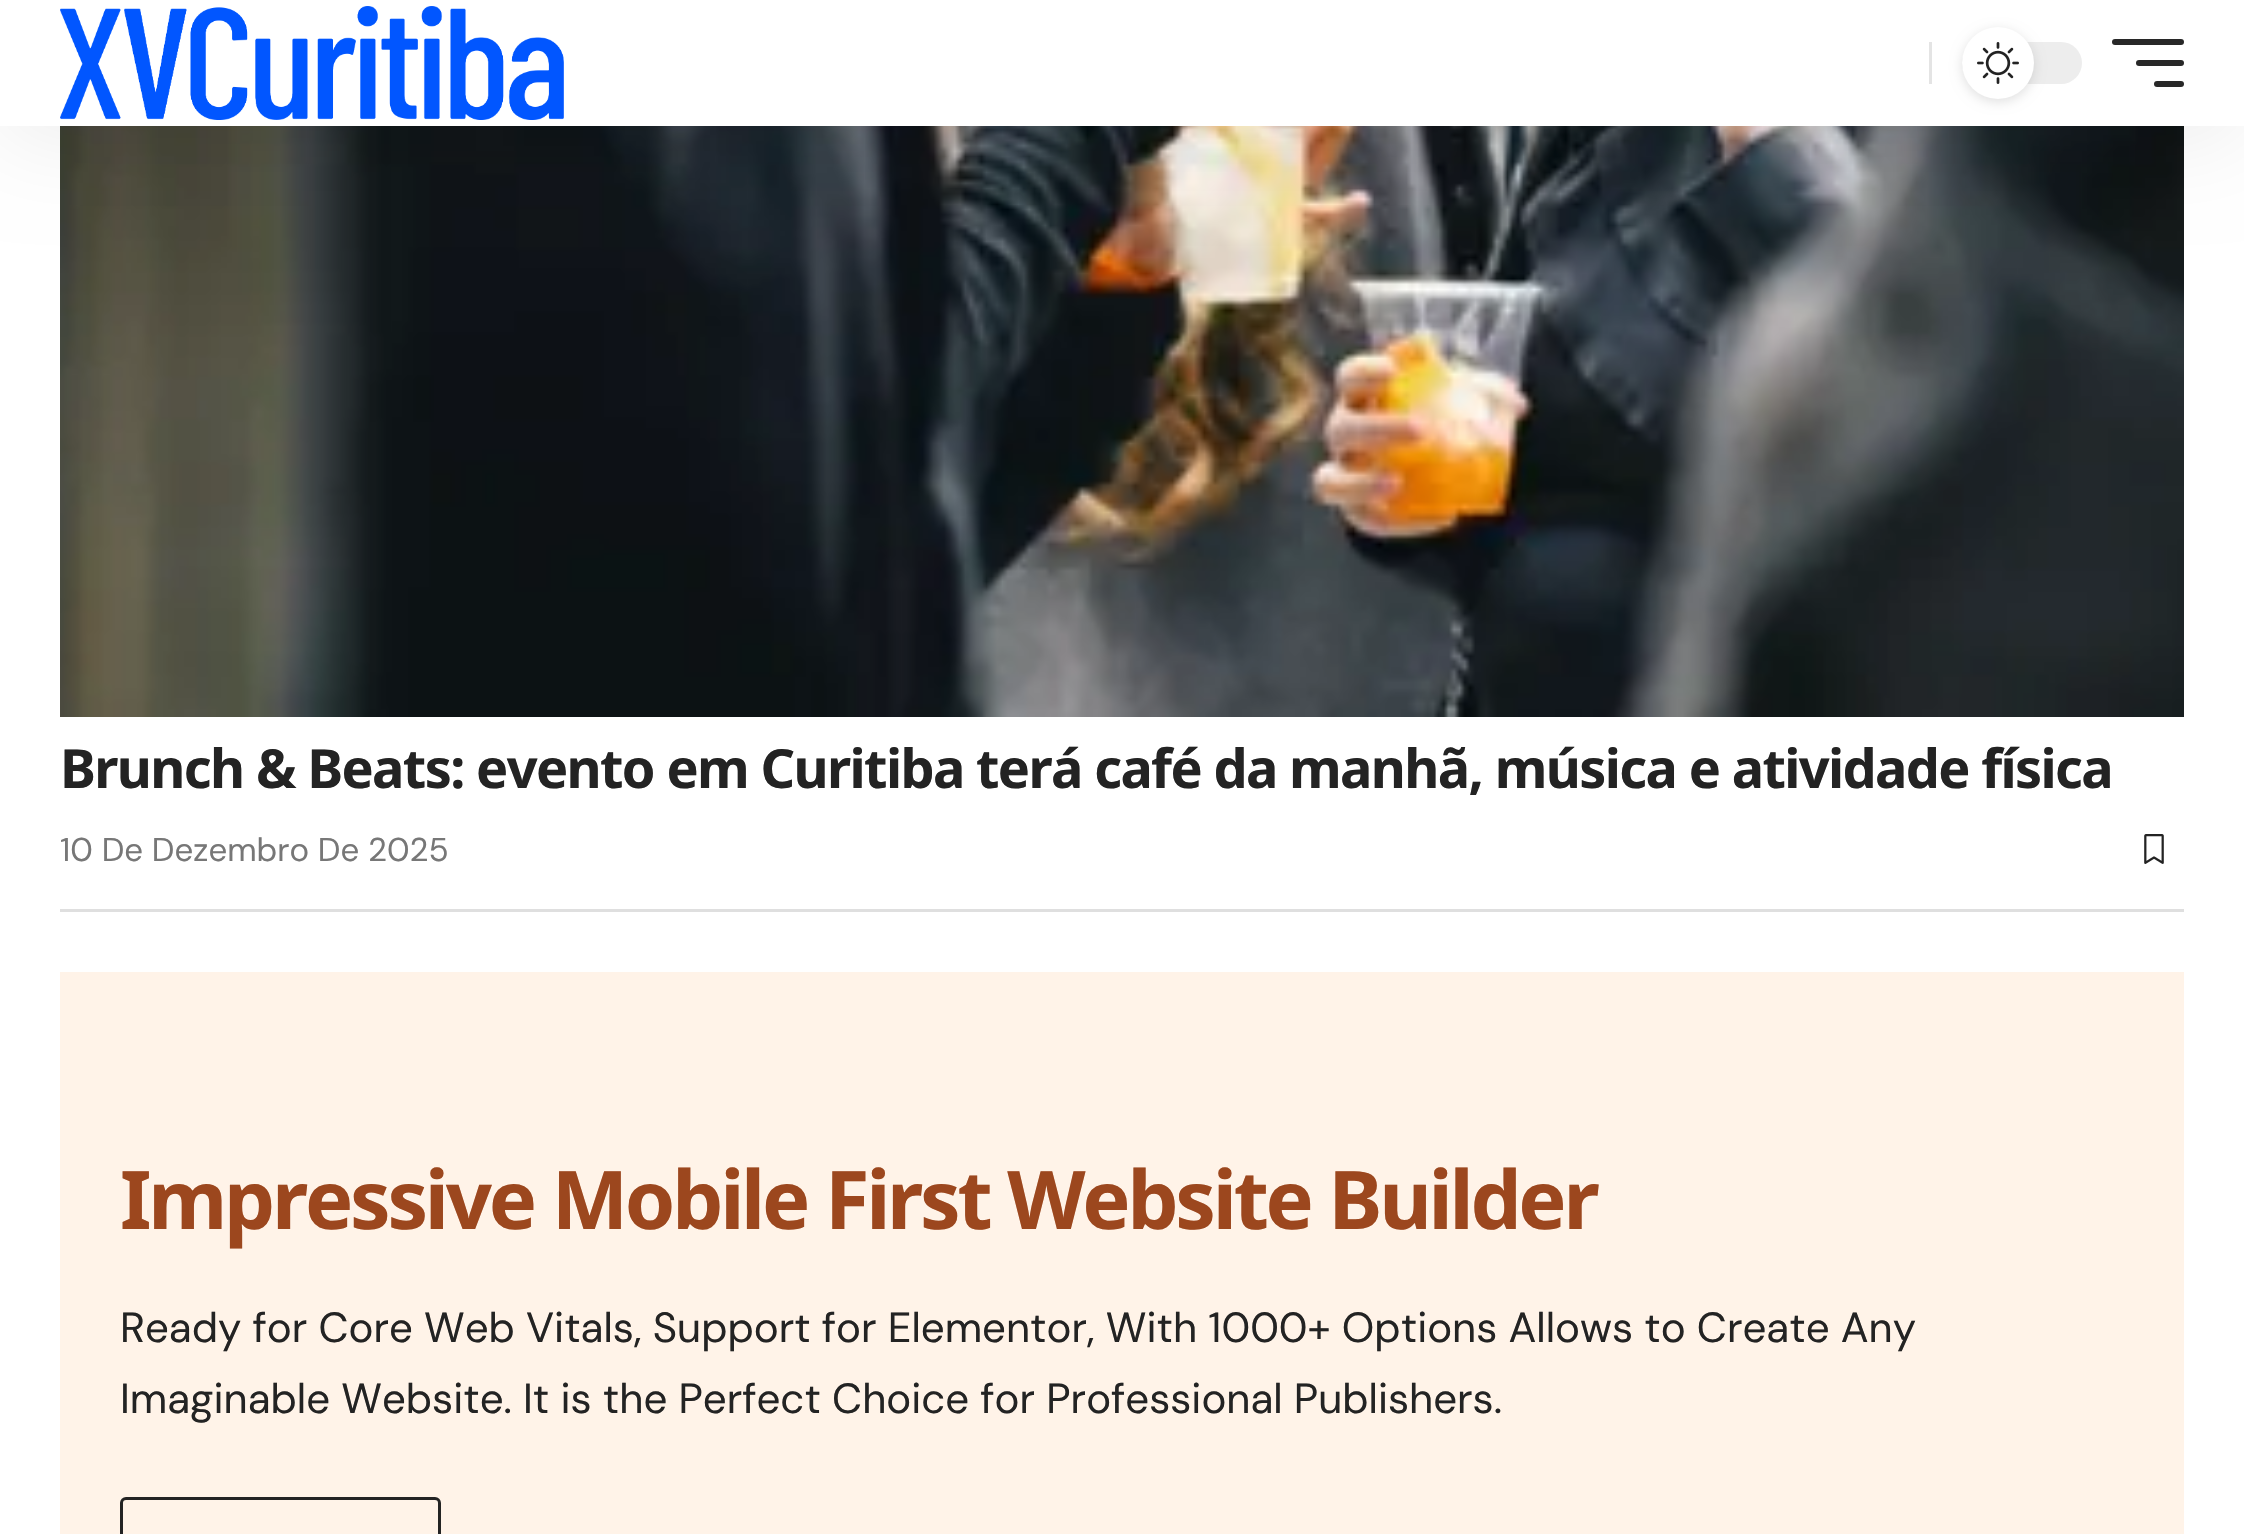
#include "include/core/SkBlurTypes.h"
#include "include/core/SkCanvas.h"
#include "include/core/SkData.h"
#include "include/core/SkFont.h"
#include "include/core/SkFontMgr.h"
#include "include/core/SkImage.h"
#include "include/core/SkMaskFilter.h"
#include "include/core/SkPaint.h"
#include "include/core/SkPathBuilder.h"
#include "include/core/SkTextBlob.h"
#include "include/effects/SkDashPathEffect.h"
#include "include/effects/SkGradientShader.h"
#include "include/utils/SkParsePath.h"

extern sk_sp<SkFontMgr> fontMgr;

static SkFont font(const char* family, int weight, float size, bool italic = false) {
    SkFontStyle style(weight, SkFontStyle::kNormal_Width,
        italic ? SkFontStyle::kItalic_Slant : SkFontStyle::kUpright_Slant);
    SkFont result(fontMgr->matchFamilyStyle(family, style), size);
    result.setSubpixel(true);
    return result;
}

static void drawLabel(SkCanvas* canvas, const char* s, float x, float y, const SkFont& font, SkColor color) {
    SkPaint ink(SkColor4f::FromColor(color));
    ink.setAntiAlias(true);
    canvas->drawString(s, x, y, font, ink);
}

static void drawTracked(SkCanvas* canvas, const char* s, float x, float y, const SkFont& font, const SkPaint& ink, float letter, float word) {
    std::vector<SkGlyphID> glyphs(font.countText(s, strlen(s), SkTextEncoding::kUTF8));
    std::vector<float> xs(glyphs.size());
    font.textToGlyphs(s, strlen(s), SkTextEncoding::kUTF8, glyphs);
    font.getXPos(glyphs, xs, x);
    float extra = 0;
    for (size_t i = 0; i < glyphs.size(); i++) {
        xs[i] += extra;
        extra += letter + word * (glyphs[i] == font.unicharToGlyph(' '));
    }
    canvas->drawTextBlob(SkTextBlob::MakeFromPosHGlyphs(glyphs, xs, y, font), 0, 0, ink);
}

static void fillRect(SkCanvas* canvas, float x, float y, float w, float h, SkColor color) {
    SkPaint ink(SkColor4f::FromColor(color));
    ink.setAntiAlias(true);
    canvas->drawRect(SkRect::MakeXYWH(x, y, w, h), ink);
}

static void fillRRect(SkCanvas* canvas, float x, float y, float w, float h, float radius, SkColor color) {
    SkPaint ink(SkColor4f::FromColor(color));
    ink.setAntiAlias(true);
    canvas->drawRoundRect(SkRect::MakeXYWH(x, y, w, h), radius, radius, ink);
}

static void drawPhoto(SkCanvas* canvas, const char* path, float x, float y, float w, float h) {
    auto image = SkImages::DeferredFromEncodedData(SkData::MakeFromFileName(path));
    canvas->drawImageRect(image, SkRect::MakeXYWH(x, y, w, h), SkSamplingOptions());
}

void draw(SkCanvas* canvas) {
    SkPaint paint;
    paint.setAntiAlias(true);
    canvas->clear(0xFFFFFFFF);
    drawPhoto(canvas, "assets/img3.png", 60, 126, 2124, 591);
    paint.setColor(0x12000000);
    paint.setMaskFilter(SkMaskFilter::MakeBlur(kNormal_SkBlurStyle, 45));
    canvas->drawRect(SkRect::MakeXYWH(0, 12, 2244, 126), paint);
    paint.setMaskFilter(nullptr);
    fillRect(canvas, 0, 0, 2244, 126, 0xFFFFFFFF);
    drawPhoto(canvas, "assets/img1.png", 60, 6, 504, 114);
    fillRect(canvas, 1929, 42, 3, 42, 0xFFE4E4E4);
    fillRRect(canvas, 1962, 42, 120, 42, 21, 0xFFEDEDED);
    paint.setColor(0x1F000000);
    paint.setMaskFilter(SkMaskFilter::MakeBlur(kNormal_SkBlurStyle, 6));
    canvas->drawRoundRect(SkRect::MakeXYWH(1962, 30, 72, 72), 36, 36, paint);
    paint.setMaskFilter(nullptr);
    paint.setColor(0xFFFFFFFF);
    canvas->drawCircle(1998, 63, 36, paint);
    drawPhoto(canvas, "assets/img2.png", 1977, 42, 42, 42);
    fillRRect(canvas, 2112, 39, 72, 6, 3, 0xFF282828);
    fillRRect(canvas, 2136, 60, 48, 6, 3, 0xFF282828);
    fillRRect(canvas, 2154, 81, 30, 6, 3, 0xFF282828);
    fillRect(canvas, 60, 909, 2124, 3, 0xFFDFDFDF);
    SkFont font1 = font("Noto Sans", 700, 54);
    paint.setColor(0xFF232323);
    drawTracked(canvas, "Brunch & Beats: evento em Curitiba terá café da manhã, música e atividade física", 60, 788, font1, paint, -1.62f, 0);
    SkFont font2 = font("DM Sans", 400, 33);
    drawLabel(canvas, "10 De Dezembro De 2025", 60, 861, font2, 0xFF777777);
    drawPhoto(canvas, "assets/img4.png", 2144, 834, 20, 30);
    fillRect(canvas, 60, 972, 2124, 562, 0xFFFFF3E8);
    SkFont font3 = font("Noto Sans", 700, 81);
    paint.setColor(0xFF9C471E);
    drawTracked(canvas, "Impressive Mobile First Website Builder", 120, 1229, font3, paint, -3.25f, 0);
    SkFont font4 = font("DM Sans", 400, 42);
    drawLabel(canvas, "Ready for Core Web Vitals, Support for Elementor, With 1000+ Options Allows to Create Any", 120, 1342, font4, 0xFF232323);
    drawLabel(canvas, "Imaginable Website. It is the Perfect Choice for Professional Publishers.", 120, 1413, font4, 0xFF232323);
    paint.setStroke(true);
    paint.setStrokeWidth(3);
    paint.setColor(0xFF232323);
    canvas->drawRoundRect(SkRect::MakeXYWH(121.5f, 1498.5f, 318, 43), 4.5f, 4.5f, paint);
}
